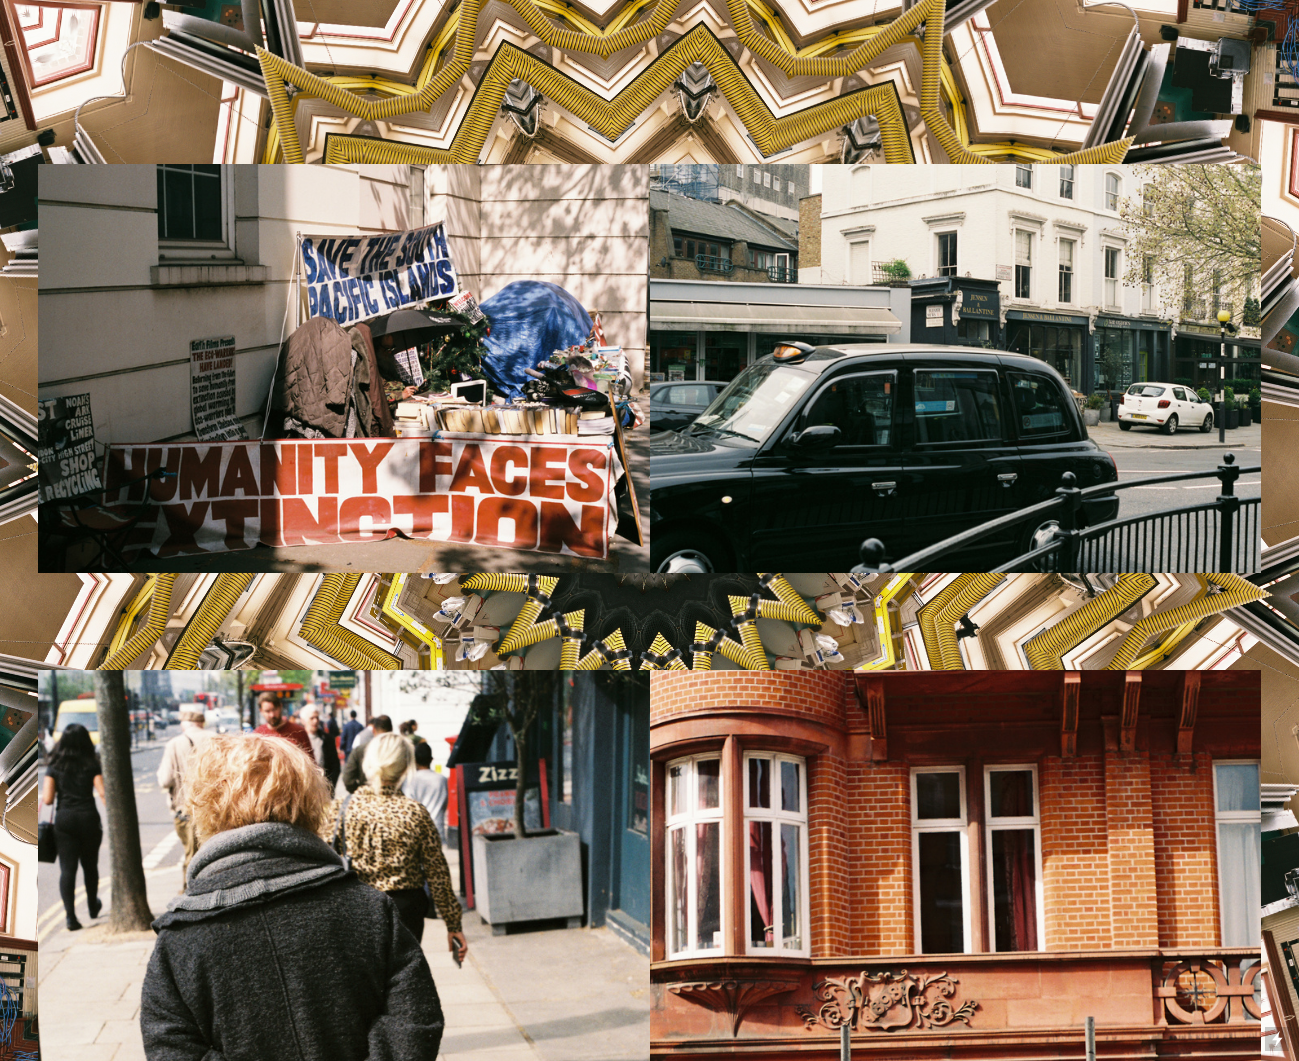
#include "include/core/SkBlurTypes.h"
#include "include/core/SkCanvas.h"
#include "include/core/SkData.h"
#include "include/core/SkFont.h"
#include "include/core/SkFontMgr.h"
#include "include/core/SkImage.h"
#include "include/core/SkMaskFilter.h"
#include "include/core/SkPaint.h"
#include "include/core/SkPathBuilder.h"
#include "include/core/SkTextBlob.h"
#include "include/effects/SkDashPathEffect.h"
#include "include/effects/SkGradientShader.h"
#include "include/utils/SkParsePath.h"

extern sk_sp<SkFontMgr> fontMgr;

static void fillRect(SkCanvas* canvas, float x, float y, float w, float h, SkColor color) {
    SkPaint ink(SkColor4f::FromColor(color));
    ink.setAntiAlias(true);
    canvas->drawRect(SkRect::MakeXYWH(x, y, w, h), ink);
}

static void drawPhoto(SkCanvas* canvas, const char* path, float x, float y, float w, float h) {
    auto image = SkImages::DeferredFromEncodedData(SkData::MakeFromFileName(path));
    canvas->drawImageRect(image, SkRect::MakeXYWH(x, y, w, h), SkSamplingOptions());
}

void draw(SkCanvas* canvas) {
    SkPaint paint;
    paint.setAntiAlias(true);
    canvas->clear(0xFFFFFFFF);
    drawPhoto(canvas, "assets/img1.png", 0, 0, 1299, 1061);
    drawPhoto(canvas, "assets/img2.png", 38, 164, 612, 409);
    drawPhoto(canvas, "assets/img3.png", 38, 670, 612, 391);
    drawPhoto(canvas, "assets/img4.png", 650, 164, 611, 409);
    drawPhoto(canvas, "assets/img5.png", 650, 670, 611, 391);
    fillRect(canvas, 1265, 1027, 24, 24, 0x33000000);
    drawPhoto(canvas, "assets/img6.png", 1272, 1031, 11, 16);
}
